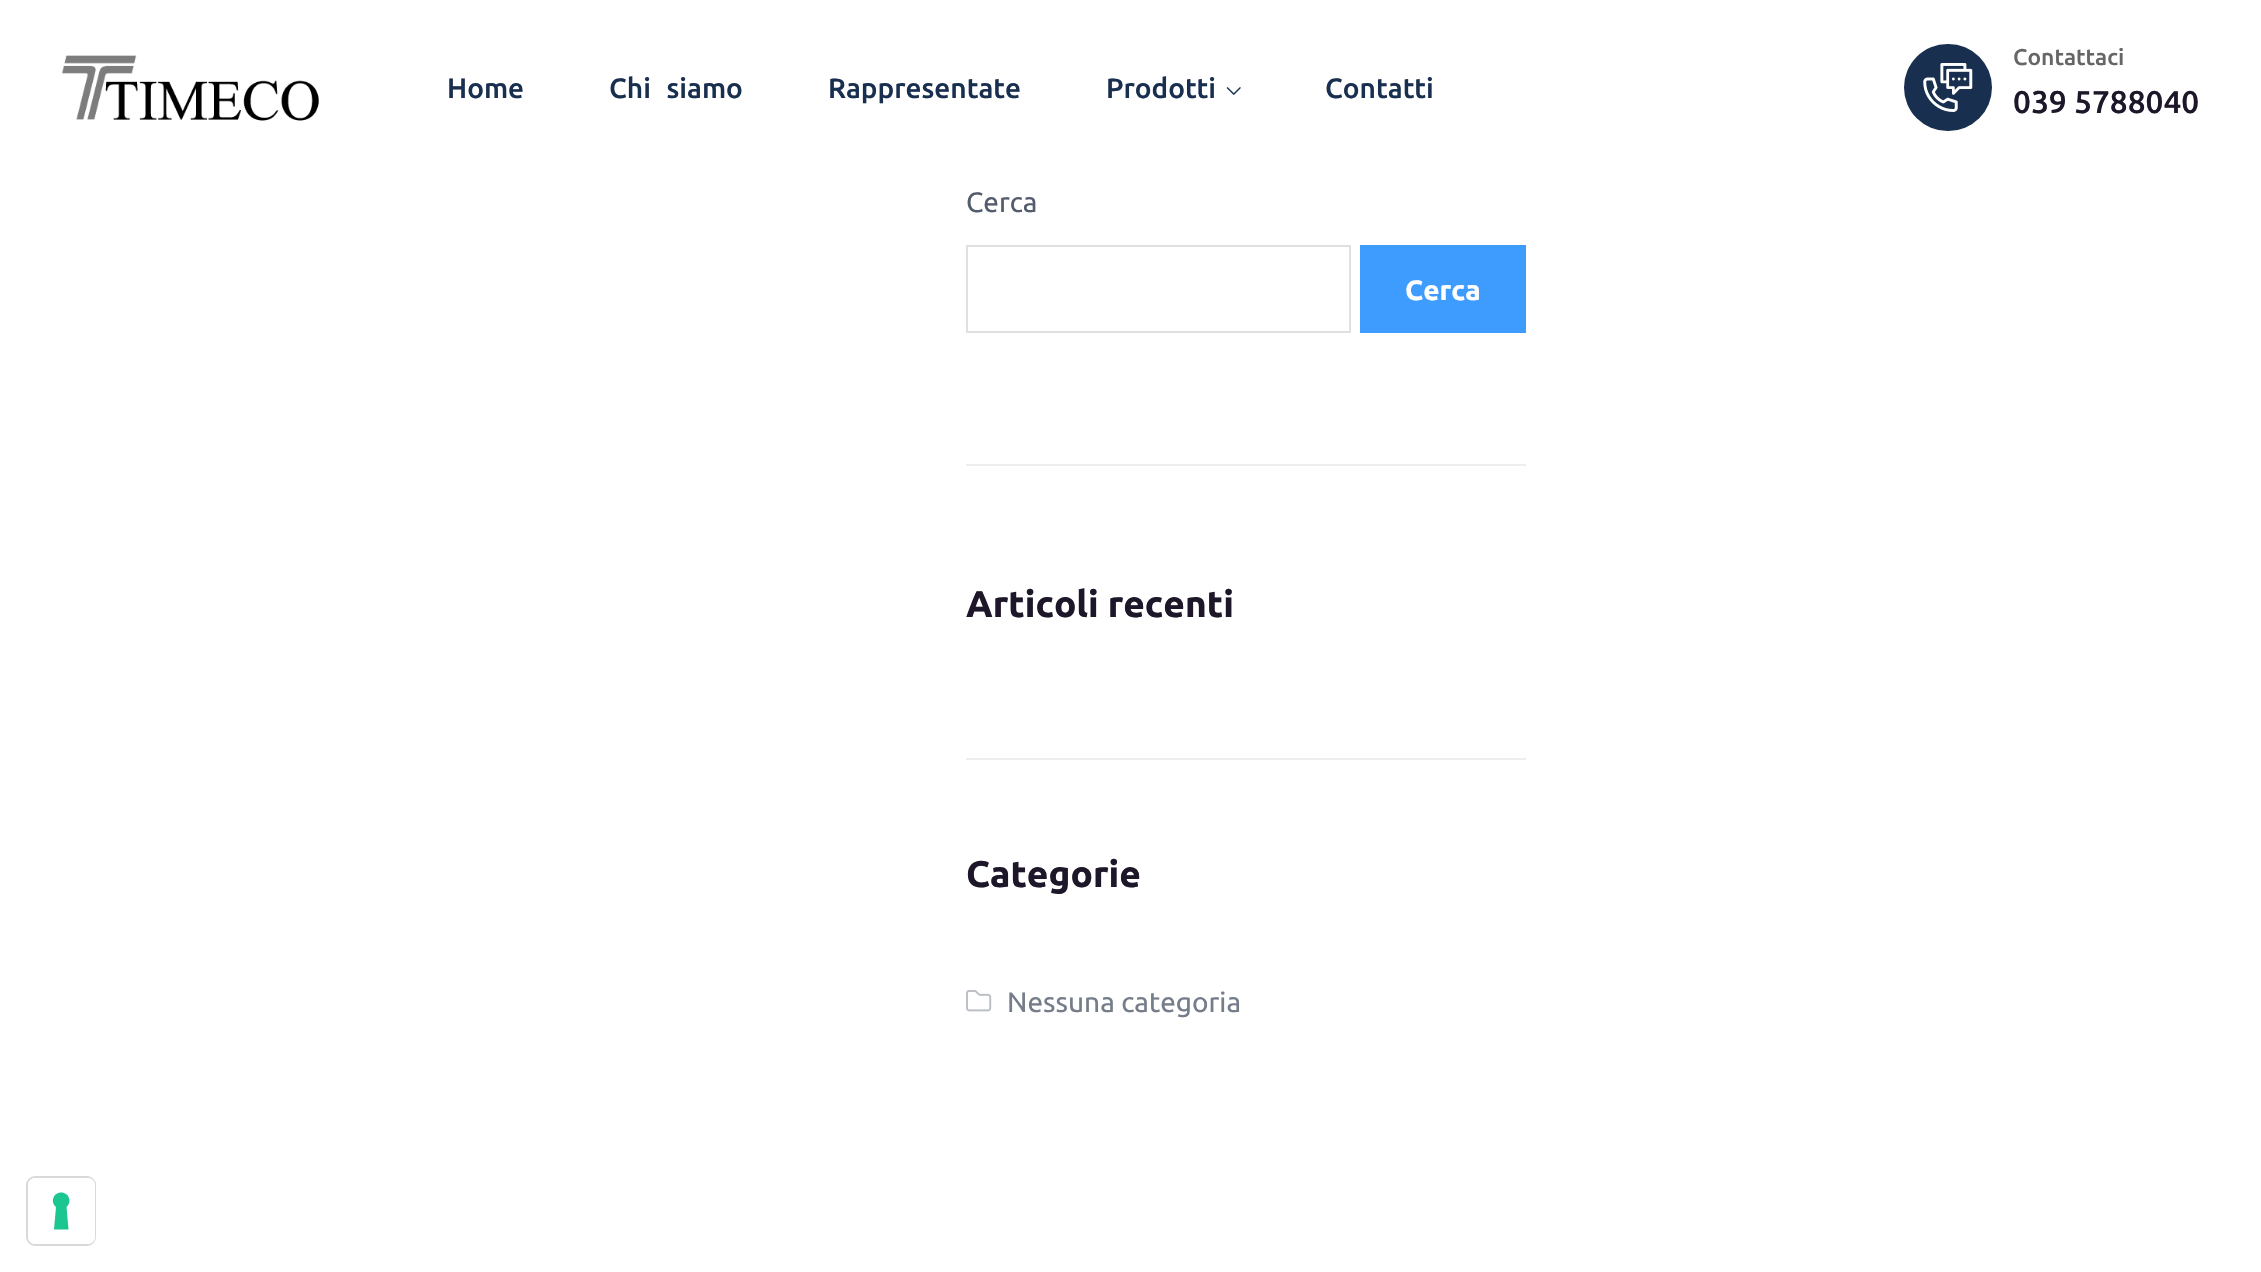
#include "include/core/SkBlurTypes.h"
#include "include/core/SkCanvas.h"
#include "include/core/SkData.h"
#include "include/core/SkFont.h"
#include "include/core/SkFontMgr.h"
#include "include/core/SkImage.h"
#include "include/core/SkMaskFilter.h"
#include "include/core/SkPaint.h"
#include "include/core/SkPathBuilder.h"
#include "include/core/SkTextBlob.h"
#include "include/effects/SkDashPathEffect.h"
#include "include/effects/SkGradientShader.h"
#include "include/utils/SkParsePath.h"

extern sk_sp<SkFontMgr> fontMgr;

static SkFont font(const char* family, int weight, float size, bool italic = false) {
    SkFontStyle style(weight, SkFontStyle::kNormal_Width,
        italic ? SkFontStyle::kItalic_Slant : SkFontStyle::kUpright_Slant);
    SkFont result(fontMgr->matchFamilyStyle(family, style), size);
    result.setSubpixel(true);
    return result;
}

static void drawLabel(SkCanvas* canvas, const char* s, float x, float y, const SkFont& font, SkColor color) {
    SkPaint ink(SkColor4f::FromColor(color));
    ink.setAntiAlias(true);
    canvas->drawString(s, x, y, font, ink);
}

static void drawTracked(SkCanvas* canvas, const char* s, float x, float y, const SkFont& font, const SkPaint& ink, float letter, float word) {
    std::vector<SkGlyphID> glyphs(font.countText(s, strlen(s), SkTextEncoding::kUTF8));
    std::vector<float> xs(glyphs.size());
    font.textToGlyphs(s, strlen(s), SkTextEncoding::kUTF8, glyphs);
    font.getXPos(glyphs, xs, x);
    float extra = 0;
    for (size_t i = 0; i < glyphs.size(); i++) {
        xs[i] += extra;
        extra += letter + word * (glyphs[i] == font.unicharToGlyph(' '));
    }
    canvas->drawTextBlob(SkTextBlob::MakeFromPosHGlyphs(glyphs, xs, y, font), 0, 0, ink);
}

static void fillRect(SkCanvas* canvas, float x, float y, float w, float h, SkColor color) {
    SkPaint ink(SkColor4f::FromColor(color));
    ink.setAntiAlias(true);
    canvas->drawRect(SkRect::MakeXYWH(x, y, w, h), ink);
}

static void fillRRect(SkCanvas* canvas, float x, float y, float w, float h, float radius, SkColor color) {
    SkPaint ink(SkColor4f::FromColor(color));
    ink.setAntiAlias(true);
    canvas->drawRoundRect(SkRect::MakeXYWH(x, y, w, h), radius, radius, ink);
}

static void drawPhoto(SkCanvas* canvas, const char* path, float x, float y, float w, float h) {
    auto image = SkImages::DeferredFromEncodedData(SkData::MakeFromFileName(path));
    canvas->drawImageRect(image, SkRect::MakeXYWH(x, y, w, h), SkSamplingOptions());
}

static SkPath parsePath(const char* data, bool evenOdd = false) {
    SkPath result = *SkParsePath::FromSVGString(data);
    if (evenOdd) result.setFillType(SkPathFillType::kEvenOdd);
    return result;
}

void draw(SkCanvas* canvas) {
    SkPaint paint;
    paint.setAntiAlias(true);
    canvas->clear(0xFFFFFFFF);
    drawPhoto(canvas, "assets/img1.png", 62, 55, 257, 66);
    SkFont font1 = font("Ubuntu", 500, 28);
    drawLabel(canvas, "Home", 447, 98, font1, 0xFF192F4F);
    paint.setColor(0xFF192F4F);
    drawTracked(canvas, "Chi siamo", 609, 98, font1, paint, 0, 9);
    drawLabel(canvas, "Rappresentate", 828, 98, font1, 0xFF192F4F);
    drawLabel(canvas, "Prodotti", 1106, 98, font1, 0xFF192F4F);
    drawPhoto(canvas, "assets/img2.png", 1226, 87, 15, 8);
    drawLabel(canvas, "Contatti", 1325, 98, font1, 0xFF192F4F);
    fillRRect(canvas, 1904, 44, 88, 87, 43.5f, 0xFF192F4F);
    drawPhoto(canvas, "assets/img3.png", 1923, 63, 50, 49);
    SkFont font2 = font("Ubuntu", 500, 22.75f);
    drawLabel(canvas, "Contattaci", 2013, 65, font2, 0xFF666666);
    SkFont font3 = font("Ubuntu", 500, 31.5f);
    drawLabel(canvas, "039 5788040", 2013, 113, font3, 0xFF1D1729);
    fillRect(canvas, 966, 464, 560, 2, 0xFFEEEEEE);
    SkFont font4 = font("Ubuntu", 400, 28);
    drawLabel(canvas, "Cerca", 966, 212, font4, 0xFF525C6D);
    paint.setStroke(true);
    paint.setStrokeWidth(2);
    paint.setColor(0xFFE0E0E0);
    canvas->drawRect(SkRect::MakeXYWH(967, 246, 383, 86), paint);
    fillRect(canvas, 1360, 245, 166, 88, 0xFF3F9CFF);
    SkFont font5 = font("Ubuntu", 700, 28);
    drawLabel(canvas, "Cerca", 1405, 300, font5, 0xFFFFFFFF);
    fillRect(canvas, 966, 758, 560, 2, 0xFFEEEEEE);
    SkFont font6 = font("Ubuntu", 700, 37);
    drawLabel(canvas, "Articoli recenti", 966, 617, font6, 0xFF1D1729);
    drawLabel(canvas, "Categorie", 966, 887, font6, 0xFF1D1729);
    drawPhoto(canvas, "assets/img4.png", 966, 990, 26, 22);
    drawLabel(canvas, "Nessuna categoria", 1007, 1012, font4, 0xFF757D8A);
    paint.setColor(0xFFD9D9D9);
    canvas->drawRoundRect(SkRect::MakeXYWH(27, 1177, 68, 68), 8, 8, paint);
    fillRRect(canvas, 28, 1178, 67, 66, 7, 0xFFFFFFFF);
    paint.setStroke(false);
    paint.setColor(0xFF1CC691);
    canvas->drawPath(parsePath("M61 1192.5C69 1192.5 72.5 1202 66.5 1207L68.5 1229.5H54L56 1207C50 1202 53.5 1192.5 61 1192.5Z", true), paint);
}
